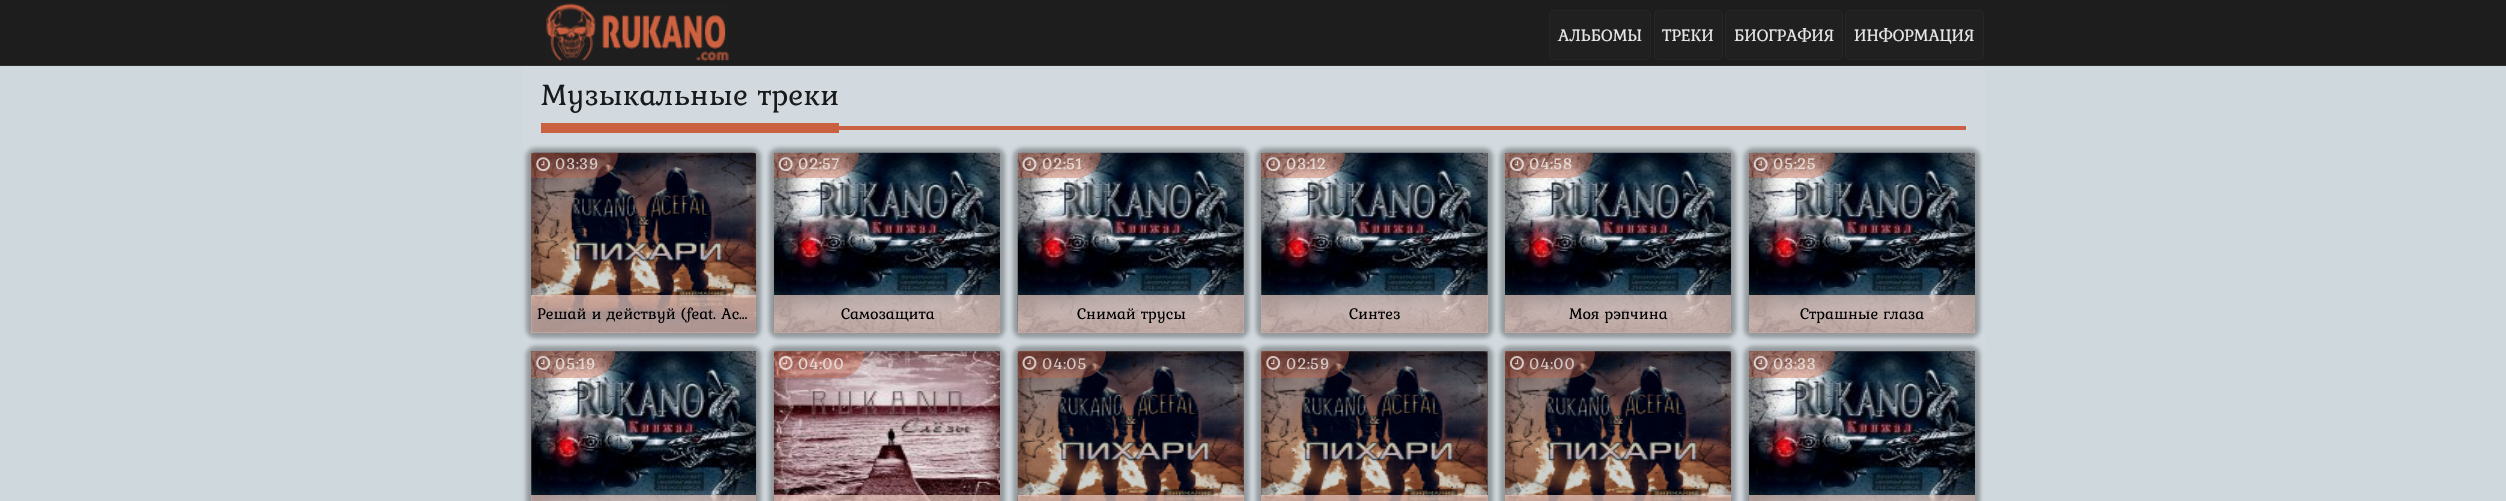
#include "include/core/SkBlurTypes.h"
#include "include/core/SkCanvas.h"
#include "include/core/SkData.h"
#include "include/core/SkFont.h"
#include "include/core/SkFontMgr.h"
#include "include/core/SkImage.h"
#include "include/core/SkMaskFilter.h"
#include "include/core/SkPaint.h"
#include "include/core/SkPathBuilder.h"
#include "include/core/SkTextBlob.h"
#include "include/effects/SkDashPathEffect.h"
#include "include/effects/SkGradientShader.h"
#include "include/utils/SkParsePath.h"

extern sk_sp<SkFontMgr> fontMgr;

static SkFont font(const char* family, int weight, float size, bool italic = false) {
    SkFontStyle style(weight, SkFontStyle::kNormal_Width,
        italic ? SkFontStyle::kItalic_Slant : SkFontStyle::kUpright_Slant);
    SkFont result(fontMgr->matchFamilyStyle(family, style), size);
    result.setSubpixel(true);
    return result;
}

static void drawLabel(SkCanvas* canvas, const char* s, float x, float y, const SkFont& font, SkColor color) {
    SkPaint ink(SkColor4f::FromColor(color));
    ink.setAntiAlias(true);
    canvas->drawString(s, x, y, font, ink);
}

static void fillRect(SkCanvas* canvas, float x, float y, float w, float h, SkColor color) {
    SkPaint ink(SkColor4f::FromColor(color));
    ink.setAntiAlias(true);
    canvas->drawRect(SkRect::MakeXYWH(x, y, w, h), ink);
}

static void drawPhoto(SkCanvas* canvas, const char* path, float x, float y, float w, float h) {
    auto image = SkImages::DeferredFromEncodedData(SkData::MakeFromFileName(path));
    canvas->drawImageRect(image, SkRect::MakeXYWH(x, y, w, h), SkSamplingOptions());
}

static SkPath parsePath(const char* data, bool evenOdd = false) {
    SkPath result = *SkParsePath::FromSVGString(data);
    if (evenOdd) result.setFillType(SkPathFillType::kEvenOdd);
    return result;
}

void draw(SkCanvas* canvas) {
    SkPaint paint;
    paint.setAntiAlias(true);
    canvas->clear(0xFFCFD8DC);
    fillRect(canvas, 0, 0, 2506, 65, 0xFF1D1D1D);
    fillRect(canvas, 0, 65, 2506, 1, 0xFF2D2D2D);
    drawPhoto(canvas, "assets/img1.png", 546, 3, 183, 59);
    paint.setColor(0xFF202020);
    canvas->drawRoundRect(SkRect::MakeXYWH(1549.5f, 10.5f, 101, 49), 4.5f, 4.5f, paint);
    paint.setStroke(true);
    paint.setStrokeWidth(1);
    paint.setColor(0xFF262626);
    canvas->drawRoundRect(SkRect::MakeXYWH(1549.5f, 10.5f, 101, 49), 4.5f, 4.5f, paint);
    SkFont font1 = font("Kurale", 400, 17.5f);
    drawLabel(canvas, "АЛЬБОМЫ", 1558, 41, font1, 0xFFE6E6E6);
    paint.setStroke(false);
    paint.setColor(0xFF202020);
    canvas->drawRoundRect(SkRect::MakeXYWH(1654.5f, 10.5f, 68, 49), 4.5f, 4.5f, paint);
    paint.setStroke(true);
    paint.setColor(0xFF262626);
    canvas->drawRoundRect(SkRect::MakeXYWH(1654.5f, 10.5f, 68, 49), 4.5f, 4.5f, paint);
    drawLabel(canvas, "ТРЕКИ", 1662, 41, font1, 0xFFE6E6E6);
    paint.setStroke(false);
    paint.setColor(0xFF202020);
    canvas->drawRoundRect(SkRect::MakeXYWH(1725.5f, 10.5f, 117, 49), 4.5f, 4.5f, paint);
    paint.setStroke(true);
    paint.setColor(0xFF262626);
    canvas->drawRoundRect(SkRect::MakeXYWH(1725.5f, 10.5f, 117, 49), 4.5f, 4.5f, paint);
    drawLabel(canvas, "БИОГРАФИЯ", 1734, 41, font1, 0xFFE6E6E6);
    paint.setStroke(false);
    paint.setColor(0xFF202020);
    canvas->drawRoundRect(SkRect::MakeXYWH(1845.5f, 10.5f, 138, 49), 4.5f, 4.5f, paint);
    paint.setStroke(true);
    paint.setColor(0xFF262626);
    canvas->drawRoundRect(SkRect::MakeXYWH(1845.5f, 10.5f, 138, 49), 4.5f, 4.5f, paint);
    drawLabel(canvas, "ИНФОРМАЦИЯ", 1854, 41, font1, 0xFFE6E6E6);
    fillRect(canvas, 523, 66, 1462, 435, 0xFFD2DADF);
    fillRect(canvas, 839, 126, 1127, 4, 0xFFC96040);
    fillRect(canvas, 541, 123, 298, 10, 0xFFC96040);
    SkFont font2 = font("Kurale", 400, 31.25f);
    drawLabel(canvas, "Музыкальные треки", 541, 105, font2, 0xFF181A1B);
    fillRect(canvas, 531, 153, 225, 180, 0xFF7E8386);
    paint.setStroke(false);
    paint.setColor(0x4D000000);
    paint.setMaskFilter(SkMaskFilter::MakeBlur(kNormal_SkBlurStyle, 2));
    canvas->drawRoundRect(SkRect::MakeXYWH(526, 148, 235, 190), 9, 9, paint);
    paint.setMaskFilter(nullptr);
    drawPhoto(canvas, "assets/img2.png", 531, 152, 226, 181);
    paint.setColor(0x66C96040);
    canvas->drawPath(parsePath("M531.5 153H618C618 167 607 178 593 178H531V153.5C531 153 531 153 531.5 153Z"), paint);
    drawPhoto(canvas, "assets/img3.png", 536, 157, 15, 15);
    SkFont font3 = font("Kurale", 400, 16.25f);
    drawLabel(canvas, "03:39", 555, 169, font3, 0xFFD4C8C5);
    fillRect(canvas, 531, 295, 225, 38, 0xB3EECDC3);
    drawLabel(canvas, "Решай и действуй (feat. Ac…", 537, 319, font3, 0xFF000000);
    fillRect(canvas, 774, 153, 226, 180, 0xFF7E8386);
    paint.setColor(0x4D000000);
    paint.setMaskFilter(SkMaskFilter::MakeBlur(kNormal_SkBlurStyle, 2));
    canvas->drawRoundRect(SkRect::MakeXYWH(769, 148, 236, 190), 9, 9, paint);
    paint.setMaskFilter(nullptr);
    drawPhoto(canvas, "assets/img4.png", 773, 152, 227, 181);
    paint.setColor(0x66C96040);
    canvas->drawPath(parsePath("M774.5 153H859C859 167 848 178 834 178H774V153.5C774 153 774 153 774.5 153Z"), paint);
    drawPhoto(canvas, "assets/img5.png", 778, 157, 15, 15);
    drawLabel(canvas, "02:57", 798, 169, font3, 0xFFE4D8D4);
    fillRect(canvas, 774, 295, 226, 38, 0xB3EECDC3);
    drawLabel(canvas, "Самозащита", 841, 319, font3, 0xFF000000);
    fillRect(canvas, 1018, 153, 226, 180, 0xFF7E8386);
    paint.setColor(0x4D000000);
    paint.setMaskFilter(SkMaskFilter::MakeBlur(kNormal_SkBlurStyle, 2));
    canvas->drawRoundRect(SkRect::MakeXYWH(1013, 148, 236, 190), 9, 9, paint);
    paint.setMaskFilter(nullptr);
    drawPhoto(canvas, "assets/img6.png", 1017, 152, 227, 181);
    paint.setColor(0x66C96040);
    canvas->drawPath(parsePath("M1018.5 153H1101C1101 167 1090 178 1076 178H1018V153.5C1018 153 1018 153 1018.5 153Z"), paint);
    drawPhoto(canvas, "assets/img7.png", 1022, 157, 15, 15);
    drawLabel(canvas, "02:51", 1042, 169, font3, 0xFFE4D8D4);
    fillRect(canvas, 1018, 295, 226, 38, 0xB3EECDC3);
    drawLabel(canvas, "Снимай трусы", 1077, 319, font3, 0xFF000000);
    fillRect(canvas, 1261, 153, 227, 180, 0xFF7E8386);
    paint.setColor(0x4D000000);
    paint.setMaskFilter(SkMaskFilter::MakeBlur(kNormal_SkBlurStyle, 2));
    canvas->drawRoundRect(SkRect::MakeXYWH(1256, 148, 237, 190), 9, 9, paint);
    paint.setMaskFilter(nullptr);
    drawPhoto(canvas, "assets/img8.png", 1261, 152, 227, 181);
    paint.setColor(0x66C96040);
    canvas->drawPath(parsePath("M1261.5 153H1345C1345 167 1334 178 1320 178H1261V153.5C1261 153 1261 153 1261.5 153Z"), paint);
    drawPhoto(canvas, "assets/img9.png", 1266, 157, 15, 15);
    drawLabel(canvas, "03:12", 1286, 169, font3, 0xFFE4D8D4);
    fillRect(canvas, 1261, 295, 227, 38, 0xB3EECDC3);
    drawLabel(canvas, "Синтез", 1349, 319, font3, 0xFF000000);
    fillRect(canvas, 1505, 153, 226, 180, 0xFF7E8386);
    paint.setColor(0x4D000000);
    paint.setMaskFilter(SkMaskFilter::MakeBlur(kNormal_SkBlurStyle, 2));
    canvas->drawRoundRect(SkRect::MakeXYWH(1500, 148, 236, 190), 9, 9, paint);
    paint.setMaskFilter(nullptr);
    drawPhoto(canvas, "assets/img10.png", 1505, 152, 227, 181);
    paint.setColor(0x66C96040);
    canvas->drawPath(parsePath("M1505.5 153H1593C1593 167 1582 178 1568 178H1505V153.5C1505 153 1505 153 1505.5 153Z"), paint);
    drawPhoto(canvas, "assets/img11.png", 1510, 157, 14, 15);
    drawLabel(canvas, "04:58", 1529, 169, font3, 0xFFE4D8D4);
    fillRect(canvas, 1505, 295, 226, 38, 0xB3EECDC3);
    drawLabel(canvas, "Моя рэпчина", 1569, 319, font3, 0xFF000000);
    fillRect(canvas, 1749, 153, 226, 180, 0xFF7E8386);
    paint.setColor(0x4D000000);
    paint.setMaskFilter(SkMaskFilter::MakeBlur(kNormal_SkBlurStyle, 2));
    canvas->drawRoundRect(SkRect::MakeXYWH(1744, 148, 236, 190), 9, 9, paint);
    paint.setMaskFilter(nullptr);
    drawPhoto(canvas, "assets/img4.png", 1748, 152, 227, 181);
    paint.setColor(0x66C96040);
    canvas->drawPath(parsePath("M1749.5 153H1835C1835 167 1824 178 1810 178H1749V153.5C1749 153 1749 153 1749.5 153Z"), paint);
    drawPhoto(canvas, "assets/img5.png", 1753, 157, 15, 15);
    drawLabel(canvas, "05:25", 1773, 169, font3, 0xFFE4D8D4);
    fillRect(canvas, 1749, 295, 226, 38, 0xB3EECDC3);
    drawLabel(canvas, "Страшные глаза", 1800, 319, font3, 0xFF000000);
    fillRect(canvas, 531, 351, 225, 150, 0xFF7E8386);
    paint.setColor(0x4D000000);
    paint.setMaskFilter(SkMaskFilter::MakeBlur(kNormal_SkBlurStyle, 2));
    canvas->drawRoundRect(SkRect::MakeXYWH(526, 346, 235, 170), 9, 9, paint);
    paint.setMaskFilter(nullptr);
    drawPhoto(canvas, "assets/img12.png", 531, 351, 226, 150);
    paint.setColor(0x66C96040);
    canvas->drawPath(parsePath("M531.5 351H615V352C615 366.5 603.5 378 589 378H531V351.5C531 351 531 351 531.5 351Z"), paint);
    drawPhoto(canvas, "assets/img13.png", 536, 356, 15, 14);
    drawLabel(canvas, "05:19", 555, 369, font3, 0xFFE4D8D4);
    fillRect(canvas, 531, 495, 225, 6, 0xB3EECDC3);
    fillRect(canvas, 774, 351, 226, 4, 0xFF7E8386);
    paint.setColor(0x4D000000);
    paint.setMaskFilter(SkMaskFilter::MakeBlur(kNormal_SkBlurStyle, 2));
    canvas->drawRoundRect(SkRect::MakeXYWH(769, 346, 236, 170), 9, 9, paint);
    paint.setMaskFilter(nullptr);
    drawPhoto(canvas, "assets/img14.png", 773, 351, 227, 150);
    paint.setColor(0x66C96040);
    canvas->drawPath(parsePath("M774.5 351H864V352C864 366.5 852.5 378 838 378H774V351.5C774 351 774 351 774.5 351Z"), paint);
    drawPhoto(canvas, "assets/img15.png", 778, 356, 15, 14);
    drawLabel(canvas, "04:00", 798, 369, font3, 0xFFE4D8D4);
    fillRect(canvas, 774, 495, 226, 6, 0xB3EECDC3);
    fillRect(canvas, 1018, 351, 226, 150, 0xFF7E8386);
    paint.setColor(0x4D000000);
    paint.setMaskFilter(SkMaskFilter::MakeBlur(kNormal_SkBlurStyle, 2));
    canvas->drawRoundRect(SkRect::MakeXYWH(1013, 346, 236, 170), 9, 9, paint);
    paint.setMaskFilter(nullptr);
    drawPhoto(canvas, "assets/img16.png", 1017, 351, 227, 150);
    paint.setColor(0x66C96040);
    canvas->drawPath(parsePath("M1018.5 351H1106V352C1106 366.5 1094.5 378 1080 378H1018V351.5C1018 351 1018 351 1018.5 351Z"), paint);
    drawPhoto(canvas, "assets/img17.png", 1022, 356, 15, 14);
    drawLabel(canvas, "04:05", 1042, 369, font3, 0xFFD4C8C5);
    fillRect(canvas, 1018, 495, 226, 6, 0xB3EECDC3);
    fillRect(canvas, 1261, 351, 227, 150, 0xFF7E8386);
    paint.setColor(0x4D000000);
    paint.setMaskFilter(SkMaskFilter::MakeBlur(kNormal_SkBlurStyle, 2));
    canvas->drawRoundRect(SkRect::MakeXYWH(1256, 346, 237, 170), 9, 9, paint);
    paint.setMaskFilter(nullptr);
    drawPhoto(canvas, "assets/img18.png", 1261, 351, 227, 150);
    paint.setColor(0x66C96040);
    canvas->drawPath(parsePath("M1261.5 351H1349V352C1349 366.5 1337.5 378 1323 378H1261V351.5C1261 351 1261 351 1261.5 351Z"), paint);
    drawPhoto(canvas, "assets/img19.png", 1266, 356, 15, 14);
    drawLabel(canvas, "02:59", 1286, 369, font3, 0xFFD4C8C5);
    fillRect(canvas, 1261, 495, 227, 6, 0xB3EECDC3);
    fillRect(canvas, 1505, 351, 226, 4, 0xFF7E8386);
    paint.setColor(0x4D000000);
    paint.setMaskFilter(SkMaskFilter::MakeBlur(kNormal_SkBlurStyle, 2));
    canvas->drawRoundRect(SkRect::MakeXYWH(1500, 346, 236, 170), 9, 9, paint);
    paint.setMaskFilter(nullptr);
    drawPhoto(canvas, "assets/img20.png", 1505, 351, 227, 150);
    paint.setColor(0x66C96040);
    canvas->drawPath(parsePath("M1505.5 351H1595V352C1595 366.5 1583.5 378 1569 378H1505V351.5C1505 351 1505 351 1505.5 351Z"), paint);
    drawPhoto(canvas, "assets/img21.png", 1510, 356, 14, 14);
    drawLabel(canvas, "04:00", 1529, 369, font3, 0xFFD4C8C5);
    fillRect(canvas, 1505, 495, 226, 6, 0xB3EECDC3);
    fillRect(canvas, 1749, 351, 226, 4, 0xFF7E8386);
    paint.setColor(0x4D000000);
    paint.setMaskFilter(SkMaskFilter::MakeBlur(kNormal_SkBlurStyle, 2));
    canvas->drawRoundRect(SkRect::MakeXYWH(1744, 346, 236, 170), 9, 9, paint);
    paint.setMaskFilter(nullptr);
    drawPhoto(canvas, "assets/img22.png", 1748, 351, 227, 150);
    paint.setColor(0x66C96040);
    canvas->drawPath(parsePath("M1749.5 351H1835V352C1835 366.5 1823.5 378 1809 378H1749V351.5C1749 351 1749 351 1749.5 351Z"), paint);
    drawPhoto(canvas, "assets/img23.png", 1753, 356, 15, 14);
    drawLabel(canvas, "03:33", 1773, 369, font3, 0xFFE4D8D4);
    fillRect(canvas, 1749, 495, 226, 6, 0xB3EECDC3);
}
